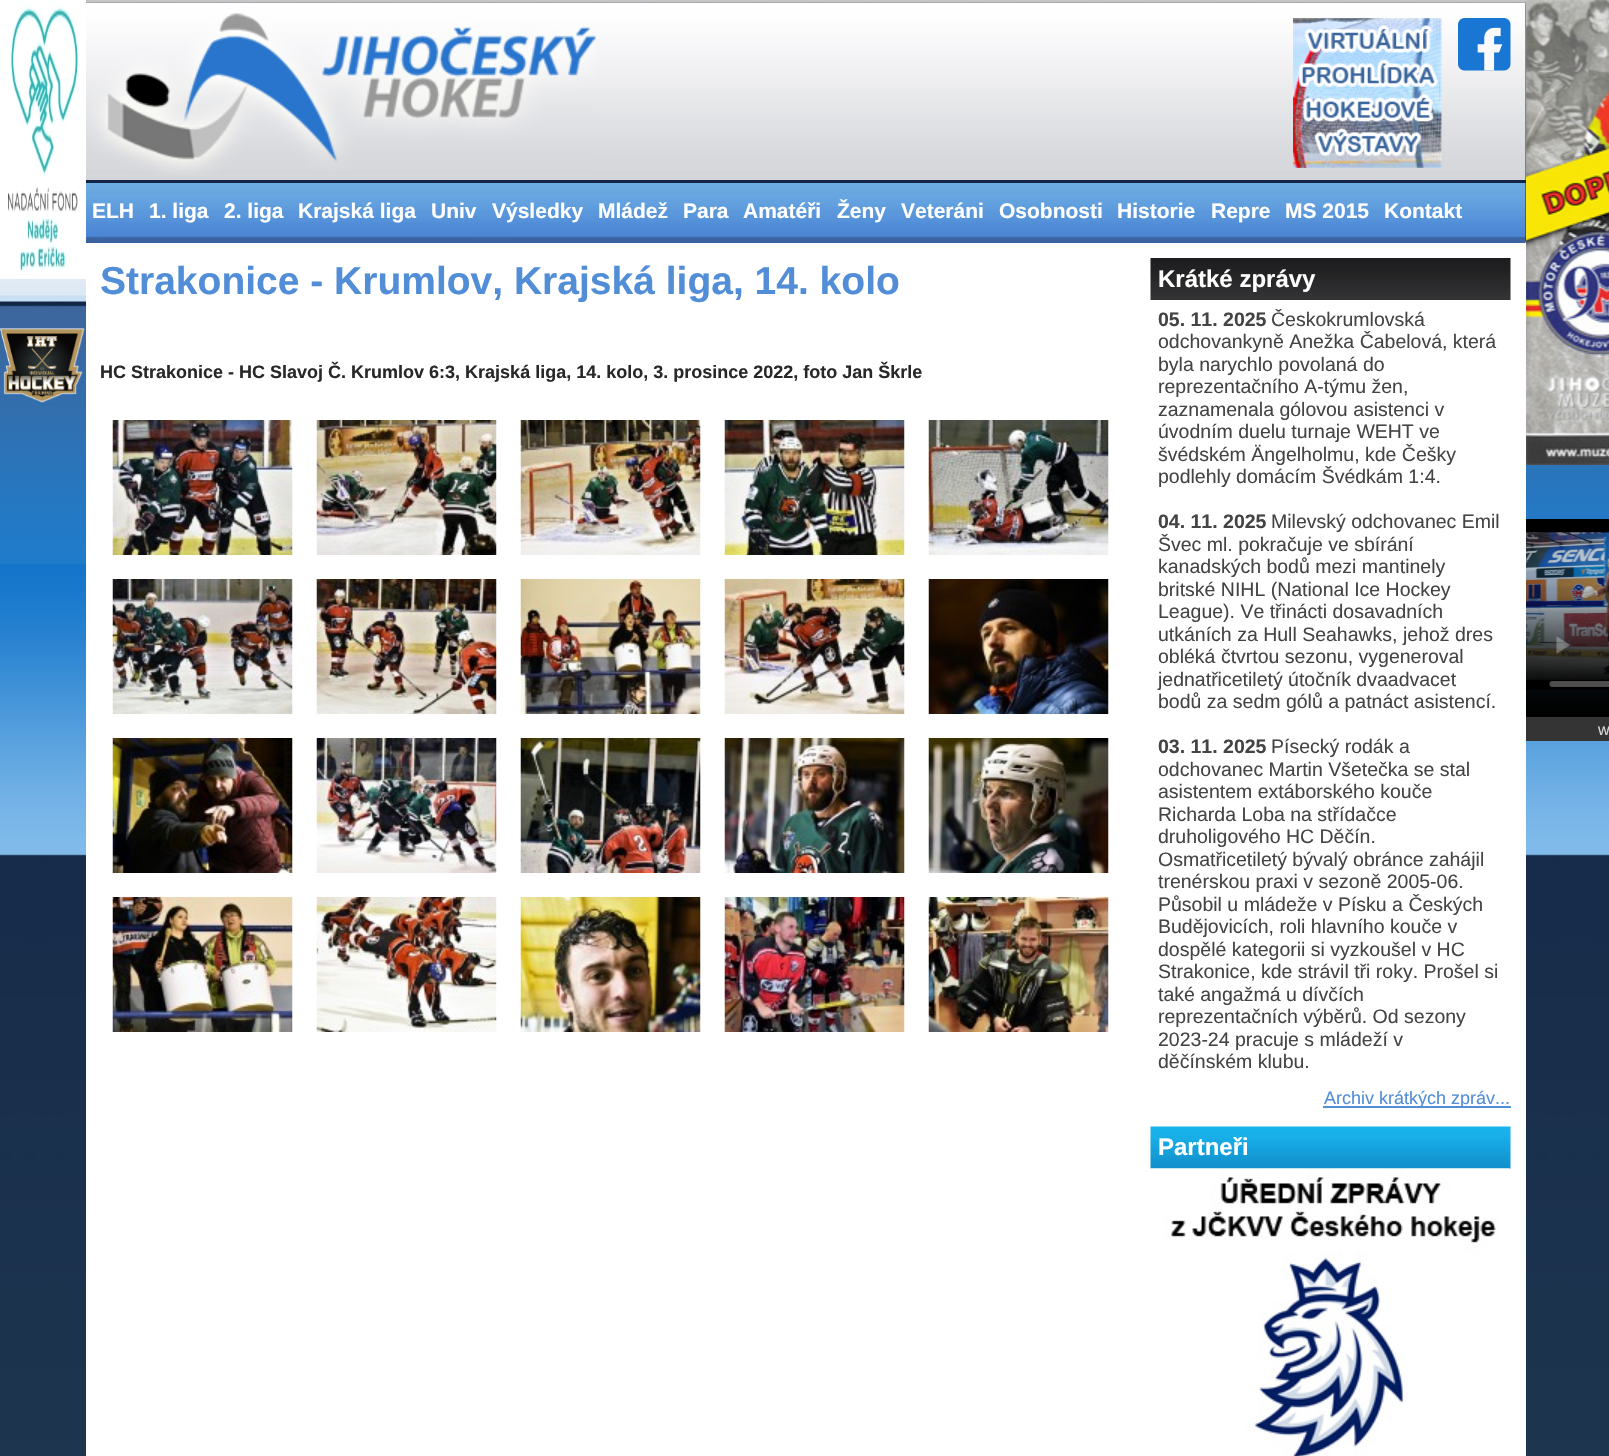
#include "include/core/SkBlurTypes.h"
#include "include/core/SkCanvas.h"
#include "include/core/SkData.h"
#include "include/core/SkFont.h"
#include "include/core/SkFontMgr.h"
#include "include/core/SkImage.h"
#include "include/core/SkMaskFilter.h"
#include "include/core/SkPaint.h"
#include "include/core/SkPathBuilder.h"
#include "include/core/SkTextBlob.h"
#include "include/effects/SkDashPathEffect.h"
#include "include/effects/SkGradientShader.h"
#include "include/utils/SkParsePath.h"

extern sk_sp<SkFontMgr> fontMgr;

static SkFont font(const char* family, int weight, float size, bool italic = false) {
    SkFontStyle style(weight, SkFontStyle::kNormal_Width,
        italic ? SkFontStyle::kItalic_Slant : SkFontStyle::kUpright_Slant);
    SkFont result(fontMgr->matchFamilyStyle(family, style), size);
    result.setSubpixel(true);
    return result;
}

static void drawLabel(SkCanvas* canvas, const char* s, float x, float y, const SkFont& font, SkColor color) {
    SkPaint ink(SkColor4f::FromColor(color));
    ink.setAntiAlias(true);
    canvas->drawString(s, x, y, font, ink);
}

static void fillRect(SkCanvas* canvas, float x, float y, float w, float h, SkColor color) {
    SkPaint ink(SkColor4f::FromColor(color));
    ink.setAntiAlias(true);
    canvas->drawRect(SkRect::MakeXYWH(x, y, w, h), ink);
}

static void drawPhoto(SkCanvas* canvas, const char* path, float x, float y, float w, float h) {
    auto image = SkImages::DeferredFromEncodedData(SkData::MakeFromFileName(path));
    canvas->drawImageRect(image, SkRect::MakeXYWH(x, y, w, h), SkSamplingOptions());
}

void draw(SkCanvas* canvas) {
    SkPaint paint;
    paint.setAntiAlias(true);
    canvas->clear(0xFFFFFFFF);
    drawPhoto(canvas, "assets/img1.png", 0, 0, 1609, 1456);
    drawPhoto(canvas, "assets/img2.png", 86, 183, 1440, 60);
    SkFont font1 = font("Liberation Sans", 700, 21);
    drawLabel(canvas, "ELH", 92, 218, font1, 0xFFFFFFFF);
    drawLabel(canvas, "1. liga", 149, 218, font1, 0xFFFFFFFF);
    drawLabel(canvas, "2. liga", 224, 218, font1, 0xFFFFFFFF);
    drawLabel(canvas, "Krajská liga", 298, 218, font1, 0xFFFFFFFF);
    drawLabel(canvas, "Univ", 431, 218, font1, 0xFFFFFFFF);
    drawLabel(canvas, "Výsledky", 492, 218, font1, 0xFFFFFFFF);
    drawLabel(canvas, "Mládež", 598, 218, font1, 0xFFFFFFFF);
    drawLabel(canvas, "Para", 683, 218, font1, 0xFFFFFFFF);
    drawLabel(canvas, "Amatéři", 743, 218, font1, 0xFFFFFFFF);
    drawLabel(canvas, "Ženy", 837, 218, font1, 0xFFFFFFFF);
    drawLabel(canvas, "Veteráni", 901, 218, font1, 0xFFFFFFFF);
    drawLabel(canvas, "Osobnosti", 999, 218, font1, 0xFFFFFFFF);
    drawLabel(canvas, "Historie", 1117, 218, font1, 0xFFFFFFFF);
    drawLabel(canvas, "Repre", 1211, 218, font1, 0xFFFFFFFF);
    drawLabel(canvas, "MS 2015", 1285, 218, font1, 0xFFFFFFFF);
    drawLabel(canvas, "Kontakt", 1384, 218, font1, 0xFFFFFFFF);
    drawPhoto(canvas, "assets/img3.png", 86, 3, 1440, 177);
    drawPhoto(canvas, "assets/img4.png", 0, 0, 86, 279);
    drawPhoto(canvas, "assets/img5.png", 0, 328, 85, 75);
    drawPhoto(canvas, "assets/img6.png", 86, 3, 510, 173);
    drawPhoto(canvas, "assets/img7.png", 1293, 18, 149, 150);
    drawPhoto(canvas, "assets/img8.png", 1458, 18, 53, 53);
    drawPhoto(canvas, "assets/img9.png", 1526, 0, 83, 465);
    drawPhoto(canvas, "assets/img10.png", 1526, 519, 83, 198);
    fillRect(canvas, 1526, 717, 83, 24, 0xFF343434);
    SkFont font2 = font("Liberation Sans", 400, 16);
    drawLabel(canvas, "w", 1598, 735, font2, 0xFFD6D6D6);
    fillRect(canvas, 86, 243, 1440, 1213, 0xFFFFFFFF);
    SkFont font3 = font("Liberation Sans", 700, 39);
    drawLabel(canvas, "Strakonice - Krumlov, Krajská liga, 14. kolo", 100, 294, font3, 0xFF528ED7);
    SkFont font4 = font("Liberation Sans", 700, 18);
    drawLabel(canvas, "HC Strakonice - HC Slavoj Č. Krumlov 6:3, Krajská liga, 14. kolo, 3. prosince 2022, foto Jan Škrle", 100, 378, font4, 0xFF282828);
    drawPhoto(canvas, "assets/img11.png", 112, 420, 181, 135);
    drawPhoto(canvas, "assets/img12.png", 316, 420, 181, 135);
    drawPhoto(canvas, "assets/img13.png", 520, 420, 181, 135);
    drawPhoto(canvas, "assets/img14.png", 724, 420, 181, 135);
    drawPhoto(canvas, "assets/img15.png", 928, 420, 181, 135);
    drawPhoto(canvas, "assets/img16.png", 112, 579, 181, 135);
    drawPhoto(canvas, "assets/img17.png", 316, 579, 181, 135);
    drawPhoto(canvas, "assets/img18.png", 520, 579, 181, 135);
    drawPhoto(canvas, "assets/img19.png", 724, 579, 181, 135);
    drawPhoto(canvas, "assets/img20.png", 928, 579, 181, 135);
    drawPhoto(canvas, "assets/img21.png", 112, 738, 181, 135);
    drawPhoto(canvas, "assets/img22.png", 316, 738, 181, 135);
    drawPhoto(canvas, "assets/img23.png", 520, 738, 181, 135);
    drawPhoto(canvas, "assets/img24.png", 724, 738, 181, 135);
    drawPhoto(canvas, "assets/img25.png", 928, 738, 181, 135);
    drawPhoto(canvas, "assets/img26.png", 112, 897, 181, 135);
    drawPhoto(canvas, "assets/img27.png", 316, 897, 181, 135);
    drawPhoto(canvas, "assets/img28.png", 520, 897, 181, 135);
    drawPhoto(canvas, "assets/img29.png", 724, 897, 181, 135);
    drawPhoto(canvas, "assets/img30.png", 928, 897, 181, 135);
    drawPhoto(canvas, "assets/img31.png", 1150, 258, 361, 42);
    SkFont font5 = font("Liberation Sans", 700, 24);
    drawLabel(canvas, "Krátké zprávy", 1158, 287, font5, 0xFFFFFFFF);
    SkFont font6 = font("Liberation Sans", 700, 19.5f);
    drawLabel(canvas, "05. 11. 2025", 1158, 326, font6, 0xFF444444);
    SkFont font7 = font("Liberation Sans", 400, 19.5f);
    drawLabel(canvas, "Českokrumlovská", 1271, 326, font7, 0xFF444444);
    drawLabel(canvas, "odchovankyně Anežka Čabelová, která", 1158, 348, font7, 0xFF444444);
    drawLabel(canvas, "byla narychlo povolaná do", 1158, 371, font7, 0xFF444444);
    drawLabel(canvas, "reprezentačního A-týmu žen,", 1158, 393, font7, 0xFF444444);
    drawLabel(canvas, "zaznamenala gólovou asistenci v", 1158, 416, font7, 0xFF444444);
    drawLabel(canvas, "úvodním duelu turnaje WEHT ve", 1158, 438, font7, 0xFF444444);
    drawLabel(canvas, "švédském Ängelholmu, kde Češky", 1158, 461, font7, 0xFF444444);
    drawLabel(canvas, "podlehly domácím Švédkám 1:4.", 1158, 483, font7, 0xFF444444);
    drawLabel(canvas, "04. 11. 2025", 1158, 528, font6, 0xFF444444);
    drawLabel(canvas, "Milevský odchovanec Emil", 1271, 528, font7, 0xFF444444);
    drawLabel(canvas, "Švec ml. pokračuje ve sbírání", 1158, 551, font7, 0xFF444444);
    drawLabel(canvas, "kanadských bodů mezi mantinely", 1158, 573, font7, 0xFF444444);
    drawLabel(canvas, "britské NIHL (National Ice Hockey", 1158, 596, font7, 0xFF444444);
    drawLabel(canvas, "League). Ve třinácti dosavadních", 1158, 618, font7, 0xFF444444);
    drawLabel(canvas, "utkáních za Hull Seahawks, jehož dres", 1158, 641, font7, 0xFF444444);
    drawLabel(canvas, "obléká čtvrtou sezonu, vygeneroval", 1158, 663, font7, 0xFF444444);
    drawLabel(canvas, "jednatřicetiletý útočník dvaadvacet", 1158, 686, font7, 0xFF444444);
    drawLabel(canvas, "bodů za sedm gólů a patnáct asistencí.", 1158, 708, font7, 0xFF444444);
    drawLabel(canvas, "03. 11. 2025", 1158, 753, font6, 0xFF444444);
    drawLabel(canvas, "Písecký rodák a", 1271, 753, font7, 0xFF444444);
    drawLabel(canvas, "odchovanec Martin Všetečka se stal", 1158, 776, font7, 0xFF444444);
    drawLabel(canvas, "asistentem extáborského kouče", 1158, 798, font7, 0xFF444444);
    drawLabel(canvas, "Richarda Loba na střídačce", 1158, 821, font7, 0xFF444444);
    drawLabel(canvas, "druholigového HC Děčín.", 1158, 843, font7, 0xFF444444);
    drawLabel(canvas, "Osmatřicetiletý bývalý obránce zahájil", 1158, 866, font7, 0xFF444444);
    drawLabel(canvas, "trenérskou praxi v sezoně 2005-06.", 1158, 888, font7, 0xFF444444);
    drawLabel(canvas, "Působil u mládeže v Písku a Českých", 1158, 911, font7, 0xFF444444);
    drawLabel(canvas, "Budějovicích, roli hlavního kouče v", 1158, 933, font7, 0xFF444444);
    drawLabel(canvas, "dospělé kategorii si vyzkoušel v HC", 1158, 956, font7, 0xFF444444);
    drawLabel(canvas, "Strakonice, kde strávil tři roky. Prošel si", 1158, 978, font7, 0xFF444444);
    drawLabel(canvas, "také angažmá u dívčích", 1158, 1001, font7, 0xFF444444);
    drawLabel(canvas, "reprezentačních výběrů. Od sezony", 1158, 1023, font7, 0xFF444444);
    drawLabel(canvas, "2023-24 pracuje s mládeží v", 1158, 1046, font7, 0xFF444444);
    drawLabel(canvas, "děčínském klubu.", 1158, 1068, font7, 0xFF444444);
    fillRect(canvas, 1323, 1106, 188, 2, 0xFF528ED7);
    SkFont font8 = font("Liberation Sans", 400, 18);
    drawLabel(canvas, "Archiv krátkých zpráv...", 1324, 1104, font8, 0xFF528ED7);
    drawPhoto(canvas, "assets/img32.png", 1150, 1126, 361, 43);
    drawLabel(canvas, "Partneři", 1158, 1155, font5, 0xFFFFFFFF);
    drawPhoto(canvas, "assets/img33.png", 1150, 1168, 359, 288);
}
